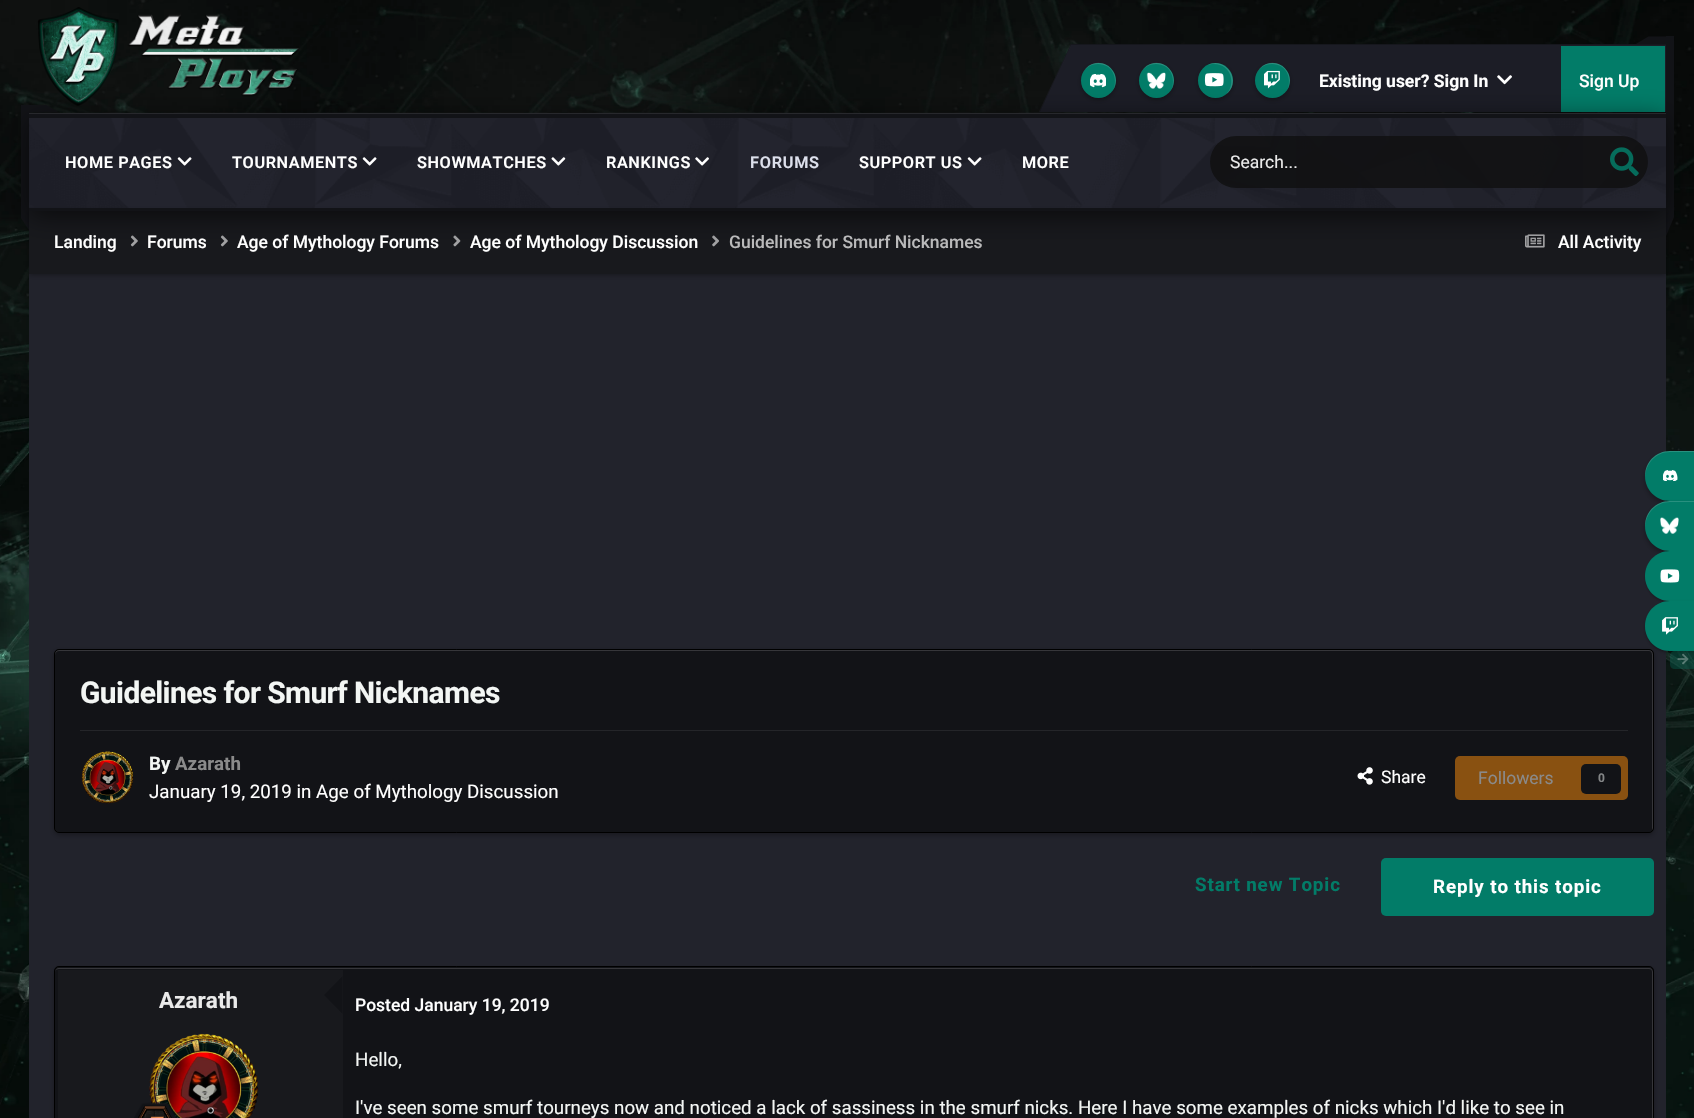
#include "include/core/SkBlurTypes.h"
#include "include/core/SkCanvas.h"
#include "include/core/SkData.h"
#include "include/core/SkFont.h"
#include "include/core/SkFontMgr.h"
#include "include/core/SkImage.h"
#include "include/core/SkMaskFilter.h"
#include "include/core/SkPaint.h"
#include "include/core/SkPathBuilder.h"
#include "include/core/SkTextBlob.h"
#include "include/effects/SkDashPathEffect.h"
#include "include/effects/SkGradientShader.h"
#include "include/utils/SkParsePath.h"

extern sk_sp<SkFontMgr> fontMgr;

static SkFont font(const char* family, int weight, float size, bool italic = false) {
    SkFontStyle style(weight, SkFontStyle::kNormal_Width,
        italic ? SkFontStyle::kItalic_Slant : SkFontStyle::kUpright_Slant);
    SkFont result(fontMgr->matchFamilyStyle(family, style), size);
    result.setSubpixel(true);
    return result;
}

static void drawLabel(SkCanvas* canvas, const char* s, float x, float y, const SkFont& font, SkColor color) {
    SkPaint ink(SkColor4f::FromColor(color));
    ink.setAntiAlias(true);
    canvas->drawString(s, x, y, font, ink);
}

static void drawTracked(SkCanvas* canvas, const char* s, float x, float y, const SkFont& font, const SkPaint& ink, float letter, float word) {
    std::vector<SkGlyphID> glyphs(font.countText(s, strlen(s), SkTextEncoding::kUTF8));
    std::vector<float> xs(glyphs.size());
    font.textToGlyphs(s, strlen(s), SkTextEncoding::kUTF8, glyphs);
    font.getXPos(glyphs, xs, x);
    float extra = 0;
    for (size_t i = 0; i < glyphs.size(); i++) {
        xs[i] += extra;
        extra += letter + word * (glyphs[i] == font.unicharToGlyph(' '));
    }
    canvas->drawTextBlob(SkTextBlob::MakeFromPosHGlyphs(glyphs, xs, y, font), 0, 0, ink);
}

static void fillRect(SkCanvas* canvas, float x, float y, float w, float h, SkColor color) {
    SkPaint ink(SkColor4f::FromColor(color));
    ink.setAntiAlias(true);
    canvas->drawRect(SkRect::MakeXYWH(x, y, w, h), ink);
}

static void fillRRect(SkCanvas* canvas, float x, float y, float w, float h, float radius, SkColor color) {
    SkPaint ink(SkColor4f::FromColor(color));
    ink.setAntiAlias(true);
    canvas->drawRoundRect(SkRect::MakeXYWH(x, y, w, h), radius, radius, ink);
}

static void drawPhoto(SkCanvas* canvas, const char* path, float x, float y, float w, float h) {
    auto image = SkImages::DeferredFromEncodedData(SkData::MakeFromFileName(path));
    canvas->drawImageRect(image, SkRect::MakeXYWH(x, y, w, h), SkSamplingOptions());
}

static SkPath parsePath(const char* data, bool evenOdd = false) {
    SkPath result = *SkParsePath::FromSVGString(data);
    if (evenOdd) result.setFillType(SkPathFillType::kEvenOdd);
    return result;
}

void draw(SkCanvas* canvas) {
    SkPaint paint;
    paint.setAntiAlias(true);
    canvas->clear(0xFFFFFFFF);
    drawPhoto(canvas, "assets/img1.png", 0, 0, 1694, 1118);
    drawPhoto(canvas, "assets/img2.png", 38, 7, 261, 99);
    canvas->save();
    canvas->clipRect(SkRect::MakeXYWH(1036, 44, 630, 69));
    paint.setColor(0xFF1C1D26);
    canvas->drawPath(parsePath("M1071 44H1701L1669 112H1039Z"), paint);
    paint.setColor(0xFF16171D);
    canvas->drawPath(parsePath("M1071 44H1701L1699 45H1071Z"), paint);
    canvas->restore();
    paint.setColor(0x99121317);
    canvas->drawPath(parsePath("M1039 112L1071 44V45L1040 112Z"), paint);
    paint.setColor(0x4D000000);
    paint.setMaskFilter(SkMaskFilter::MakeBlur(kNormal_SkBlurStyle, 2.5f));
    canvas->drawRoundRect(SkRect::MakeXYWH(1081, 65, 35, 35), 17.5f, 17.5f, paint);
    paint.setMaskFilter(nullptr);
    paint.setColor(0xFF027C68);
    canvas->drawCircle(1098.5f, 80.5f, 17.5f, paint);
    paint.setColor(0x26FFFFFF);
    canvas->drawPath(parsePath("M1098 64C1113 64 1118 79 1113.5 89.5C1122.5 73.5 1104 55.5 1088.5 66C1086 68 1083.5 70.5 1082.5 74C1084.5 68.5 1090 64 1098 64Z"), paint);
    drawPhoto(canvas, "assets/img3.png", 1090, 74, 16, 14);
    paint.setColor(0x4D000000);
    paint.setMaskFilter(SkMaskFilter::MakeBlur(kNormal_SkBlurStyle, 2.5f));
    canvas->drawRoundRect(SkRect::MakeXYWH(1139, 65, 35, 35), 17.5f, 17.5f, paint);
    paint.setMaskFilter(nullptr);
    paint.setColor(0xFF027C68);
    canvas->drawCircle(1156.5f, 80.5f, 17.5f, paint);
    paint.setColor(0x26FFFFFF);
    canvas->drawPath(parsePath("M1156 64C1171 64 1176 79 1171.5 89.5C1180.5 73.5 1162 55.5 1146.5 66C1144 68 1141.5 70.5 1140.5 74C1142.5 68.5 1148 64 1156 64Z"), paint);
    drawPhoto(canvas, "assets/img4.png", 1146, 72, 20, 17);
    paint.setColor(0x4D000000);
    paint.setMaskFilter(SkMaskFilter::MakeBlur(kNormal_SkBlurStyle, 2.5f));
    canvas->drawRoundRect(SkRect::MakeXYWH(1198, 65, 35, 35), 17.5f, 17.5f, paint);
    paint.setMaskFilter(nullptr);
    paint.setColor(0xFF027C68);
    canvas->drawCircle(1215.5f, 80.5f, 17.5f, paint);
    paint.setColor(0x26FFFFFF);
    canvas->drawPath(parsePath("M1214 64C1232 64 1236 85 1226 94.5C1243.5 81.5 1225 54.5 1206.5 65.5C1208.5 64.5 1211 64 1214 64Z"), paint);
    drawPhoto(canvas, "assets/img5.png", 1204, 73, 20, 14);
    paint.setColor(0x4D000000);
    paint.setMaskFilter(SkMaskFilter::MakeBlur(kNormal_SkBlurStyle, 2.5f));
    canvas->drawRoundRect(SkRect::MakeXYWH(1255, 65, 35, 35), 17.5f, 17.5f, paint);
    paint.setMaskFilter(nullptr);
    paint.setColor(0xFF027C68);
    canvas->drawCircle(1272.5f, 80.5f, 17.5f, paint);
    paint.setColor(0x26FFFFFF);
    canvas->drawPath(parsePath("M1272 64C1287 64 1292 79 1287.5 89.5C1296.5 73.5 1278 55.5 1262.5 66C1260 68 1257.5 70.5 1256.5 74C1258.5 68.5 1264 64 1272 64Z"), paint);
    drawPhoto(canvas, "assets/img6.png", 1264, 70, 16, 19);
    SkFont font1 = font("Roboto", 700, 17.5f);
    drawLabel(canvas, "Existing user? Sign In", 1319, 87, font1, 0xFFFFFFFF);
    drawPhoto(canvas, "assets/img7.png", 1497, 75, 15, 10);
    fillRect(canvas, 1561, 46, 104, 66, 0xFF027C68);
    SkFont font2 = font("Roboto", 500, 17.5f);
    drawLabel(canvas, "Sign Up", 1579, 87, font2, 0xFFFFFFFF);
    fillRect(canvas, 29, 118, 1637, 90, 0xFF1C1D26);
    drawPhoto(canvas, "assets/img8.png", 29, 112, 1637, 96);
    paint.setColor(0xFF121317);
    canvas->drawPath(parsePath("M1648.5 36.5H1673.5V44H1636Z"), paint);
    canvas->drawPath(parsePath("M1666 36H1674V217L1666 236Z"), paint);
    canvas->drawPath(parsePath("M21.5 105H46.5L59 112.5H21.5Z"), paint);
    canvas->drawPath(parsePath("M21 105H29V230L21 218Z"), paint);
    fillRect(canvas, 29, 114, 1637, 4, 0xFF121317);
    fillRect(canvas, 29, 113, 1637, 1, 0xFF27282C);
    fillRect(canvas, 29, 274, 1637, 844, 0xFF22232C);
    paint.setColor(0x59000000);
    paint.setMaskFilter(SkMaskFilter::MakeBlur(kNormal_SkBlurStyle, 2.5f));
    canvas->drawRect(SkRect::MakeXYWH(29, 211, 1637, 64), paint);
    paint.setMaskFilter(nullptr);
    fillRect(canvas, 29, 211, 1637, 63, 0xFF18191D);
    drawPhoto(canvas, "assets/img15.png", 130, 235, 8, 12);
    drawPhoto(canvas, "assets/img15.png", 220, 235, 8, 12);
    drawPhoto(canvas, "assets/img16.png", 453, 235, 8, 12);
    drawPhoto(canvas, "assets/img17.png", 712, 235, 7, 12);
    drawPhoto(canvas, "assets/img18.png", 1525, 234, 20, 14);
    canvas->save();
    canvas->clipPath(parsePath("M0 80H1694V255H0ZM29 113H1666V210H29Z", true), true);
    paint.setColor(0x99000000);
    paint.setMaskFilter(SkMaskFilter::MakeBlur(kNormal_SkBlurStyle, 12.5f));
    canvas->drawRect(SkRect::MakeXYWH(29, 119, 1637, 97), paint);
    paint.setMaskFilter(nullptr);
    canvas->restore();
    fillRect(canvas, 29, 208, 1637, 3, 0xFF121317);
    SkFont font3 = font("Roboto", 600, 16.25f);
    paint.setColor(0xFFFFFFFF);
    drawTracked(canvas, "HOME PAGES", 65, 168, font3, paint, 0.6f, 0);
    drawPhoto(canvas, "assets/img9.png", 177, 157, 15, 9);
    drawTracked(canvas, "TOURNAMENTS", 232, 168, font3, paint, 0.6f, 0);
    drawPhoto(canvas, "assets/img10.png", 362, 157, 15, 9);
    drawTracked(canvas, "SHOWMATCHES", 417, 168, font3, paint, 0.6f, 0);
    drawPhoto(canvas, "assets/img11.png", 551, 157, 15, 9);
    drawTracked(canvas, "RANKINGS", 606, 168, font3, paint, 0.6f, 0);
    drawPhoto(canvas, "assets/img12.png", 695, 157, 14, 9);
    paint.setColor(0xFFDDE0EC);
    drawTracked(canvas, "FORUMS", 750, 168, font3, paint, 0.75f, 0);
    paint.setColor(0xFFFFFFFF);
    drawTracked(canvas, "SUPPORT US", 859, 168, font3, paint, 0.6f, 0);
    drawPhoto(canvas, "assets/img13.png", 967, 157, 15, 9);
    drawTracked(canvas, "MORE", 1022, 168, font3, paint, 0.6f, 0);
    fillRRect(canvas, 1210, 136, 438, 52, 26, 0xD90F0F11);
    SkFont font4 = font("Roboto", 400, 17.5f);
    drawLabel(canvas, "Search...", 1230, 168, font4, 0xFFEAEAEA);
    drawPhoto(canvas, "assets/img14.png", 1610, 147, 29, 29);
    drawLabel(canvas, "Landing", 54, 248, font2, 0xFFFFFFFF);
    drawLabel(canvas, "Forums", 147, 248, font2, 0xFFFFFFFF);
    drawLabel(canvas, "Age of Mythology Forums", 237, 248, font2, 0xFFFFFFFF);
    drawLabel(canvas, "Age of Mythology Discussion", 470, 248, font2, 0xFFFFFFFF);
    drawLabel(canvas, "Guidelines for Smurf Nicknames", 729, 248, font2, 0xFFBABABB);
    drawLabel(canvas, "All Activity", 1558, 248, font2, 0xFFFFFFFF);
    paint.setColor(0x4D000000);
    paint.setMaskFilter(SkMaskFilter::MakeBlur(kNormal_SkBlurStyle, 2.5f));
    canvas->drawRoundRect(SkRect::MakeXYWH(54, 651, 1600, 184), 5, 5, paint);
    paint.setMaskFilter(nullptr);
    fillRRect(canvas, 54, 649, 1600, 184, 5, 0xFF121317);
    paint.setColor(0xFF36363A);
    canvas->drawPath(parsePath("M59 651H1649C1651 651 1652 653 1652 655V830C1653 829 1653 828 1653 827V654C1653 652 1651 650 1649 650H59C57 650 55 652 55 654V655C55 653 57 651 59 651Z"), paint);
    paint.setStroke(true);
    paint.setStrokeWidth(1);
    paint.setColor(0xFF000000);
    canvas->drawRoundRect(SkRect::MakeXYWH(54.5f, 649.5f, 1599, 183), 4.5f, 4.5f, paint);
    SkFont font5 = font("Roboto", 700, 30);
    paint.setStroke(false);
    paint.setColor(0xFFF3F6F4);
    drawTracked(canvas, "Guidelines for Smurf Nicknames", 80, 703, font5, paint, -0.6f, 0);
    fillRect(canvas, 80, 730, 1548, 1, 0xFF242529);
    drawPhoto(canvas, "assets/img19.png", 81, 751, 53, 53);
    SkFont font6 = font("Roboto", 700, 18.75f);
    drawLabel(canvas, "By", 149, 770, font6, 0xFFF3F6F4);
    drawLabel(canvas, "Azarath", 175, 770, font6, 0xFF8A8A8A);
    SkFont font7 = font("Roboto", 400, 18.75f);
    drawLabel(canvas, "January 19, 2019 in Age of Mythology Discussion", 149, 798, font7, 0xFFFFFFFF);
    drawPhoto(canvas, "assets/img20.png", 1357, 767, 16, 18);
    drawLabel(canvas, "Share", 1381, 783, font4, 0xFFFFFFFF);
    fillRRect(canvas, 1455, 756, 173, 44, 5, 0xFF895111);
    drawLabel(canvas, "Followers", 1478, 784, font4, 0xFF8A8A8A);
    fillRRect(canvas, 1581, 764, 40, 30, 5, 0xFF121317);
    SkFont font8 = font("Roboto", 700, 12);
    drawLabel(canvas, "0", 1598, 782, font8, 0xFF838586);
    paint.setColor(0xFF027C68);
    drawTracked(canvas, "Start new Topic", 1195, 891, font6, paint, 0.9f, 0);
    fillRRect(canvas, 1381, 858, 273, 58, 5, 0xFF027C68);
    paint.setColor(0xFFFFFFFF);
    drawTracked(canvas, "Reply to this topic", 1433, 893, font6, paint, 0.9f, 0);
    paint.setColor(0x4D000000);
    paint.setMaskFilter(SkMaskFilter::MakeBlur(kNormal_SkBlurStyle, 2.5f));
    canvas->drawRoundRect(SkRect::MakeXYWH(54, 969, 1600, 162), 5, 5, paint);
    paint.setMaskFilter(nullptr);
    fillRRect(canvas, 54, 966, 1600, 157, 5, 0xFF121317);
    paint.setColor(0xFF36363A);
    canvas->drawPath(parsePath("M59 969H1649C1651 969 1652 970 1652 972V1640C1653 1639 1653 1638 1653 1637V972C1653 970 1651 968 1649 968H59C57 968 55 970 55 972C55 970 57 969 59 969Z"), paint);
    paint.setStroke(true);
    paint.setColor(0xFF000000);
    canvas->drawRoundRect(SkRect::MakeXYWH(54.5f, 966.5f, 1599, 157), 4.5f, 4.5f, paint);
    fillRect(canvas, 58, 970, 285, 148, 0xFF18191D);
    SkFont font9 = font("Roboto", 700, 22.5f);
    drawLabel(canvas, "Azarath", 159, 1008, font9, 0xFFEAEAEA);
    drawPhoto(canvas, "assets/img21.png", 149, 1033, 110, 85);
    drawPhoto(canvas, "assets/img22.png", 134, 1102, 42, 16);
    paint.setStroke(false);
    paint.setColor(0xFF121317);
    canvas->drawPath(parsePath("M342.5 976V1014L324 995Z"), paint);
    drawLabel(canvas, "Posted January 19, 2019", 355, 1011, font2, 0xFFFFFFFF);
    drawLabel(canvas, "Hello,", 355, 1066, font7, 0xFFF3F6F4);
    drawLabel(canvas, "I've seen some smurf tourneys now and noticed a lack of sassiness in the smurf nicks. Here I have some examples of nicks which I'd like to see in", 355, 1114, font7, 0xFFF3F6F4);
    paint.setColor(0x4D000000);
    paint.setMaskFilter(SkMaskFilter::MakeBlur(kNormal_SkBlurStyle, 2.5f));
    canvas->drawRoundRect(SkRect::MakeXYWH(1645, 454, 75, 50), 25, 25, paint);
    paint.setMaskFilter(nullptr);
    paint.setColor(0xFF027C68);
    canvas->drawPath(parsePath("M1670 451H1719V501H1670C1656 501 1645 490 1645 476C1645 462 1656 451 1670 451Z"), paint);
    paint.setColor(0x26FFFFFF);
    canvas->drawPath(parsePath("M1670 452H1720V451H1670C1656 451 1645 462 1645 476V477C1646 463 1656 452 1670 452Z"), paint);
    drawPhoto(canvas, "assets/img23.png", 1663, 470, 15, 11);
    paint.setColor(0x4D000000);
    paint.setMaskFilter(SkMaskFilter::MakeBlur(kNormal_SkBlurStyle, 2.5f));
    canvas->drawRoundRect(SkRect::MakeXYWH(1645, 504, 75, 50), 25, 25, paint);
    paint.setMaskFilter(nullptr);
    paint.setColor(0xFF027C68);
    canvas->drawPath(parsePath("M1670 501H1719V551H1670C1656 551 1645 540 1645 526C1645 512 1656 501 1670 501Z"), paint);
    paint.setColor(0x26FFFFFF);
    canvas->drawPath(parsePath("M1670 502H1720V501H1670C1656 501 1645 512 1645 526V527C1646 513 1656 502 1670 502Z"), paint);
    drawPhoto(canvas, "assets/img24.png", 1660, 517, 19, 17);
    paint.setColor(0x2E000000);
    paint.setMaskFilter(SkMaskFilter::MakeBlur(kNormal_SkBlurStyle, 1));
    canvas->drawRoundRect(SkRect::MakeXYWH(1645, 553, 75, 50), 25, 25, paint);
    paint.setMaskFilter(nullptr);
    paint.setColor(0xFF027C68);
    canvas->drawPath(parsePath("M1670 551H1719V601H1670C1656 601 1645 590 1645 576C1645 562 1656 551 1670 551Z"), paint);
    paint.setColor(0x26027C68);
    canvas->drawPath(parsePath("M1670 551H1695V601H1670C1656 601 1645 590 1645 576C1645 562 1656 551 1670 551Z"), paint);
    drawPhoto(canvas, "assets/img25.png", 1660, 569, 20, 14);
    paint.setColor(0x2E000000);
    paint.setMaskFilter(SkMaskFilter::MakeBlur(kNormal_SkBlurStyle, 1));
    canvas->drawRoundRect(SkRect::MakeXYWH(1645, 603, 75, 50), 25, 25, paint);
    paint.setMaskFilter(nullptr);
    paint.setColor(0x1A000000);
    paint.setMaskFilter(SkMaskFilter::MakeBlur(kNormal_SkBlurStyle, 2));
    canvas->drawRoundRect(SkRect::MakeXYWH(1645, 603, 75, 50), 25, 25, paint);
    paint.setMaskFilter(nullptr);
    paint.setColor(0xFF027C68);
    canvas->drawPath(parsePath("M1670 601H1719V651H1670C1656 651 1645 640 1645 626C1645 612 1656 601 1670 601Z"), paint);
    paint.setColor(0x26027C68);
    canvas->drawPath(parsePath("M1670 601H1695V651H1670C1656 651 1645 640 1645 626C1645 612 1656 601 1670 601Z"), paint);
    drawPhoto(canvas, "assets/img26.png", 1662, 617, 16, 18);
    paint.setColor(0x4D027C68);
    canvas->drawPath(parsePath("M1675 651H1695V669H1675C1672 669 1670 667 1670 664V656C1670 653 1672 651 1675 651Z"), paint);
    drawPhoto(canvas, "assets/img27.png", 1677, 653, 12, 12);
}
